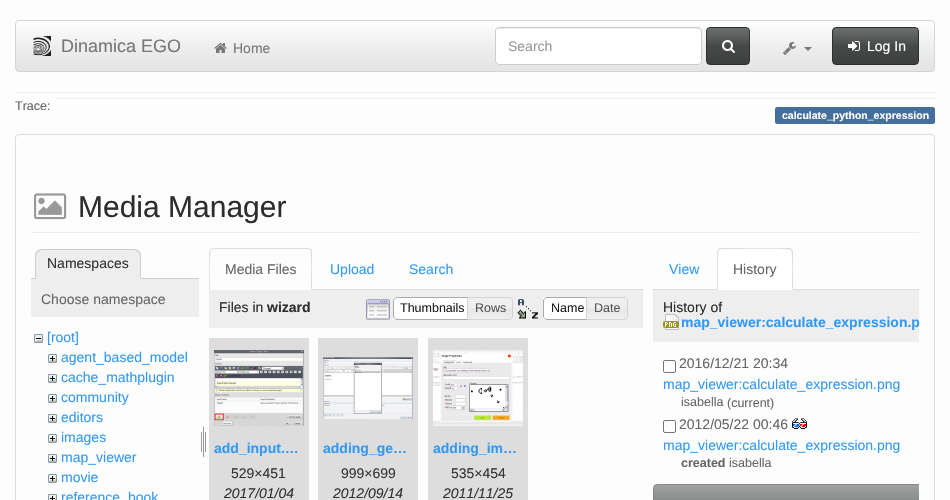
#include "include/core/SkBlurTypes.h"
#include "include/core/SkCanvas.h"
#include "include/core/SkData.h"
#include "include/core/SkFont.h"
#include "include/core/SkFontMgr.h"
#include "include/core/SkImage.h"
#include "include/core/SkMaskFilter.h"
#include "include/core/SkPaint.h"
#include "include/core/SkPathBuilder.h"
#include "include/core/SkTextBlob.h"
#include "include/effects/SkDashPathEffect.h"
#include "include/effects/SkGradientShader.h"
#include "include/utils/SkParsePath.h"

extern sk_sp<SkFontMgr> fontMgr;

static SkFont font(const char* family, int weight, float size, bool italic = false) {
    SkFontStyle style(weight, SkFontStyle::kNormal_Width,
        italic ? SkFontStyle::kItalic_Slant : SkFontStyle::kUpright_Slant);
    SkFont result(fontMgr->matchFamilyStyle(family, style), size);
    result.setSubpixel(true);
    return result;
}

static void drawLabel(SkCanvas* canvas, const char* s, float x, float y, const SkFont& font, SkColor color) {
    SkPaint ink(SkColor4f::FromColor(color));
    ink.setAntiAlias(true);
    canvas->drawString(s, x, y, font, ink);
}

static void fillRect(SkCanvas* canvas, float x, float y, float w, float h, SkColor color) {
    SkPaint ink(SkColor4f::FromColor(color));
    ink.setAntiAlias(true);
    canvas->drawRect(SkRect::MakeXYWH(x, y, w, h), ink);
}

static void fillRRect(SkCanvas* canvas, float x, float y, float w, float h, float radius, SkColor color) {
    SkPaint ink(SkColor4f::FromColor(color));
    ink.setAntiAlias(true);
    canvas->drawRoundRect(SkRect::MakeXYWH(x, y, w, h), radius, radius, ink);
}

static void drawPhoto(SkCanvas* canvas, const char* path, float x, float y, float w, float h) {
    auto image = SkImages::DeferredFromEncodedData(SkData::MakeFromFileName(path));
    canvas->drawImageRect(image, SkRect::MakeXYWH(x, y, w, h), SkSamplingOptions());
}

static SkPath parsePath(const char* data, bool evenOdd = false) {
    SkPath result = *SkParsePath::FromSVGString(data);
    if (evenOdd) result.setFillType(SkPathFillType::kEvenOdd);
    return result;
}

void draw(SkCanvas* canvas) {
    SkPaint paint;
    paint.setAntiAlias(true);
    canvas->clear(0xFFFDFDFD);
    canvas->save();
    canvas->clipPath(parsePath("M19 20H931C933 20 935 22 935 24V68C935 70 933 72 931 72H19C17 72 15 70 15 68V24C15 22 17 20 19 20Z"), true);
    {
        const SkColor colors[] = {0xFFFFFFFF, 0xFFEEEEEE, 0xFFE4E4E4};
        const float stops[] = {0, 0.5f, 1};
        const SkPoint ends[] = {{475, 21}, {475, 71}};
        paint.setShader(SkGradientShader::MakeLinear(ends, colors, stops, 3, SkTileMode::kClamp));
        paint.setAlpha(255);
    }
    canvas->drawRect(SkRect::MakeXYWH(16, 21, 918, 50), paint);
    canvas->restore();
    paint.setStroke(true);
    paint.setStrokeWidth(1);
    paint.setShader(nullptr);
    paint.setColor(0xFFD5D5D5);
    canvas->drawRoundRect(SkRect::MakeXYWH(15.5f, 20.5f, 919, 51), 3.5f, 3.5f, paint);
    drawPhoto(canvas, "assets/img1.png", 33, 36, 18, 20);
    SkFont font1 = font("Liberation Sans", 400, 18);
    drawLabel(canvas, "Dinamica EGO", 61, 52, font1, 0xFF777777);
    drawPhoto(canvas, "assets/img2.png", 214, 43, 13, 10);
    SkFont font2 = font("Liberation Sans", 400, 14);
    drawLabel(canvas, "Home", 233, 53, font2, 0xFF777777);
    fillRRect(canvas, 495, 27, 207, 38, 4, 0xFFFFFFFF);
    paint.setStroke(false);
    paint.setColor(0xFFECECEC);
    canvas->drawPath(parsePath("M499 29H698C700 29 701 30 701 32C701 30 700 28 698 28H499C497 28 496 30 496 32C496 30 497 29 499 29Z"), paint);
    paint.setStroke(true);
    paint.setColor(0xFFCCCCCC);
    canvas->drawRoundRect(SkRect::MakeXYWH(495.5f, 27.5f, 206, 37), 3.5f, 3.5f, paint);
    drawLabel(canvas, "Search", 508, 51, font2, 0xFF999999);
    canvas->save();
    canvas->clipPath(parsePath("M710 27H746C748 27 750 29 750 31V61C750 63 748 65 746 65H710C708 65 706 63 706 61V31C706 29 708 27 710 27Z"), true);
    paint.setStroke(false);
    {
        const SkColor colors[] = {0xFF6D7070, 0xFF474949, 0xFF3D3F3F};
        const float stops[] = {0, 0.5f, 1};
        const SkPoint ends[] = {{728, 28}, {728, 64}};
        paint.setShader(SkGradientShader::MakeLinear(ends, colors, stops, 3, SkTileMode::kClamp));
        paint.setAlpha(255);
    }
    canvas->drawRect(SkRect::MakeXYWH(707, 28, 42, 36), paint);
    canvas->restore();
    paint.setStroke(true);
    paint.setShader(nullptr);
    paint.setColor(0xFF2E2F2F);
    canvas->drawRoundRect(SkRect::MakeXYWH(706.5f, 27.5f, 43, 37), 3.5f, 3.5f, paint);
    drawPhoto(canvas, "assets/img3.png", 722, 40, 13, 13);
    drawPhoto(canvas, "assets/img4.png", 783, 42, 13, 13);
    paint.setStroke(false);
    paint.setColor(0xFF777777);
    canvas->drawPath(parsePath("M804 47H812L808 51Z"), paint);
    canvas->save();
    canvas->clipPath(parsePath("M836 27H915C917 27 919 29 919 31V61C919 63 917 65 915 65H836C834 65 832 63 832 61V31C832 29 834 27 836 27Z"), true);
    {
        const SkColor colors[] = {0xFF6D7070, 0xFF474949, 0xFF3D3F3F};
        const float stops[] = {0, 0.5f, 1};
        const SkPoint ends[] = {{876, 28}, {876, 64}};
        paint.setShader(SkGradientShader::MakeLinear(ends, colors, stops, 3, SkTileMode::kClamp));
        paint.setAlpha(255);
    }
    canvas->drawRect(SkRect::MakeXYWH(833, 28, 85, 36), paint);
    canvas->restore();
    paint.setStroke(true);
    paint.setShader(nullptr);
    paint.setColor(0xFF2E2F2F);
    canvas->drawRoundRect(SkRect::MakeXYWH(832.5f, 27.5f, 86, 37), 3.5f, 3.5f, paint);
    drawPhoto(canvas, "assets/img5.png", 848, 41, 12, 10);
    drawLabel(canvas, "Log In", 867, 51, font2, 0xFFFFFFFF);
    fillRect(canvas, 15, 92, 920, 1, 0xFFEEEEEE);
    fillRect(canvas, 56, 98, 879, 1, 0xFFEEEEEE);
    SkFont font3 = font("Liberation Sans", 400, 12.5f);
    drawLabel(canvas, "Trace:", 15, 110, font3, 0xFF666666);
    fillRRect(canvas, 775, 107, 160, 17, 2.5f, 0xFF446E9B);
    SkFont font4 = font("Liberation Sans", 700, 10.5f);
    drawLabel(canvas, "calculate_python_expression", 782, 119, font4, 0xFFFFFFFF);
    paint.setColor(0xFFDDDDDD);
    canvas->drawRoundRect(SkRect::MakeXYWH(15.5f, 134.5f, 919, 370), 3.5f, 3.5f, paint);
    fillRect(canvas, 31, 232, 888, 1, 0xFFEEEEEE);
    drawPhoto(canvas, "assets/img6.png", 34, 193, 33, 27);
    SkFont font5 = font("Liberation Sans", 400, 30);
    drawLabel(canvas, "Media Manager", 78, 217, font5, 0xFF2D2D2D);
    fillRect(canvas, 31, 278, 168, 1, 0xFFCCCCCC);
    paint.setStroke(false);
    paint.setColor(0xFFEEEEEE);
    canvas->drawPath(parsePath("M42 249H134C138 249 141 252 141 256V279H35V256C35 252 38 249 42 249Z"), paint);
    paint.setColor(0xFFCCCCCC);
    canvas->drawPath(parsePath("M42 249C40 249 38 250 37 251L38 252L41 250H135L138 252L139 251C138 250 136 249 134 249Z"), paint);
    canvas->drawPath(parsePath("M141 279V256C141 254 140 252 139 251L138 252C139 253 140 254.5 140 256V278Z"), paint);
    paint.setColor(0xFFEEEEEE);
    canvas->drawPath(parsePath("M141 279L140 278H36L35 279Z"), paint);
    paint.setColor(0xFFCCCCCC);
    canvas->drawPath(parsePath("M35 279L36 278V256C36 254.5 37 253 38 252L37 251C36 252 35 254 35 256Z"), paint);
    drawLabel(canvas, "Namespaces", 47, 268, font2, 0xFF333333);
    fillRect(canvas, 31, 279, 168, 38, 0xFFEEEEEE);
    drawLabel(canvas, "Choose namespace", 41, 304, font2, 0xFF666666);
    drawPhoto(canvas, "assets/img7.png", 34, 334, 9, 9);
    drawLabel(canvas, "[root]", 47, 342, font2, 0xFF3399F3);
    drawPhoto(canvas, "assets/img8.png", 48, 354, 9, 9);
    drawLabel(canvas, "agent_based_model", 61, 362, font2, 0xFF3399F3);
    drawPhoto(canvas, "assets/img8.png", 48, 374, 9, 9);
    drawLabel(canvas, "cache_mathplugin", 61, 382, font2, 0xFF3399F3);
    drawPhoto(canvas, "assets/img8.png", 48, 394, 9, 9);
    drawLabel(canvas, "community", 61, 402, font2, 0xFF3399F3);
    drawPhoto(canvas, "assets/img8.png", 48, 414, 9, 9);
    drawLabel(canvas, "editors", 61, 422, font2, 0xFF3399F3);
    drawPhoto(canvas, "assets/img8.png", 48, 434, 9, 9);
    drawLabel(canvas, "images", 61, 442, font2, 0xFF3399F3);
    drawPhoto(canvas, "assets/img8.png", 48, 454, 9, 9);
    drawLabel(canvas, "map_viewer", 61, 462, font2, 0xFF3399F3);
    drawPhoto(canvas, "assets/img8.png", 48, 474, 9, 9);
    drawLabel(canvas, "movie", 61, 482, font2, 0xFF3399F3);
    drawPhoto(canvas, "assets/img9.png", 48, 494, 9, 6);
    drawLabel(canvas, "reference_book", 61, 502, font2, 0xFF3399F3);
    drawPhoto(canvas, "assets/img10.png", 201, 426, 5, 31);
    fillRect(canvas, 312, 289, 331, 1, 0xFFDDDDDD);
    paint.setColor(0xFFDDDDDD);
    canvas->drawPath(parsePath("M213 248L210 249L211 250L213 249H308L310 250L311 249L308 248Z"), paint);
    canvas->drawPath(parsePath("M312 290V252C312 251 312 250 311 249L310 250C312 252 311 284 311 289Z"), paint);
    canvas->drawPath(parsePath("M209 290L210 289C210 284 209 252 211 250L210 249L209 252Z"), paint);
    drawLabel(canvas, "Media Files", 225, 274, font2, 0xFF666666);
    drawLabel(canvas, "Upload", 330, 274, font2, 0xFF3399F3);
    drawLabel(canvas, "Search", 409, 274, font2, 0xFF3399F3);
    fillRect(canvas, 209, 290, 434, 38, 0xFFEEEEEE);
    drawLabel(canvas, "Files in", 219, 312, font2, 0xFF2D2D2D);
    SkFont font6 = font("Liberation Sans", 700, 14);
    drawLabel(canvas, "wizard", 267, 312, font6, 0xFF2D2D2D);
    drawPhoto(canvas, "assets/img11.png", 366, 299, 24, 21);
    fillRect(canvas, 393, 297, 74, 23, 0xFFFFFFFF);
    paint.setStroke(true);
    paint.setColor(0xFFAAAAAA);
    canvas->drawPath(parsePath("M397 297.5H471.5V319.5H397C395 319.5 393.5 318 393.5 316V301C393.5 299 395 297.5 397 297.5Z"), paint);
    drawLabel(canvas, "Thumbnails", 400, 312, font3, 0xFF212121);
    drawPhoto(canvas, "assets/img12.png", 468, 297, 45, 23);
    paint.setColor(0xFFD3D3D3);
    canvas->drawPath(parsePath("M467.5 297.5H509C511 297.5 512.5 299 512.5 301V316C512.5 318 511 319.5 509 319.5H467.5Z"), paint);
    drawLabel(canvas, "Rows", 475, 312, font3, 0xFF555555);
    drawPhoto(canvas, "assets/img13.png", 517, 299, 21, 20);
    fillRect(canvas, 543, 297, 43, 23, 0xFFFFFFFF);
    paint.setColor(0xFFAAAAAA);
    canvas->drawPath(parsePath("M547 297.5H590.5V319.5H547C545 319.5 543.5 318 543.5 316V301C543.5 299 545 297.5 547 297.5Z"), paint);
    drawLabel(canvas, "Name", 551, 312, font3, 0xFF212121);
    drawPhoto(canvas, "assets/img14.png", 587, 297, 41, 23);
    paint.setColor(0xFFD3D3D3);
    canvas->drawPath(parsePath("M586.5 297.5H624C626 297.5 627.5 299 627.5 301V316C627.5 318 626 319.5 624 319.5H586.5Z"), paint);
    drawLabel(canvas, "Date", 594, 312, font3, 0xFF555555);
    fillRect(canvas, 209, 338, 100, 162, 0xFFDDDDDD);
    drawPhoto(canvas, "assets/img15.png", 214, 350, 90, 76);
    drawLabel(canvas, "add_input.…", 214, 453, font6, 0xFF3399F3);
    drawLabel(canvas, "529×451", 231, 478, font2, 0xFF333333);
    SkFont font7 = font("Liberation Sans", 400, 14, true);
    drawLabel(canvas, "2017/01/04", 224, 498, font7, 0xFF333333);
    fillRect(canvas, 318, 338, 100, 162, 0xFFDDDDDD);
    drawPhoto(canvas, "assets/img16.png", 323, 357, 90, 62);
    drawLabel(canvas, "adding_ge…", 323, 453, font6, 0xFF3399F3);
    drawLabel(canvas, "999×699", 341, 478, font2, 0xFF333333);
    drawLabel(canvas, "2012/09/14", 333, 498, font7, 0xFF333333);
    fillRect(canvas, 428, 338, 100, 162, 0xFFDDDDDD);
    drawPhoto(canvas, "assets/img17.png", 433, 350, 90, 76);
    drawLabel(canvas, "adding_im…", 433, 453, font6, 0xFF3399F3);
    drawLabel(canvas, "535×454", 451, 478, font2, 0xFF333333);
    drawLabel(canvas, "2011/11/25", 443, 498, font7, 0xFF333333);
    fillRect(canvas, 653, 289, 266, 1, 0xFFDDDDDD);
    drawLabel(canvas, "View", 669, 274, font2, 0xFF3399F3);
    paint.setStroke(false);
    paint.setColor(0xFFFFFFFF);
    canvas->drawPath(parsePath("M721 248H789C791 248 793 250 793 252V290H717V252C717 250 719 248 721 248Z"), paint);
    paint.setColor(0xFFDDDDDD);
    canvas->drawPath(parsePath("M721 248L718 249L719 250L721 249H732C739 249 789 248 791 250L792 249L789 248Z"), paint);
    canvas->drawPath(parsePath("M793 290V252C793 251 792 250 792 249L791 250C793 252 792 284 792 289Z"), paint);
    canvas->drawPath(parsePath("M717 290L718 289C718 284 717 252 719 250L718 249L717 252Z"), paint);
    drawLabel(canvas, "History", 733, 274, font2, 0xFF666666);
    fillRect(canvas, 653, 290, 266, 52, 0xFFEEEEEE);
    drawLabel(canvas, "History of", 663, 312, font2, 0xFF2D2D2D);
    drawPhoto(canvas, "assets/img18.png", 663, 314, 16, 16);
    drawLabel(canvas, "map_viewer:calculate_expression.p", 681, 327, font6, 0xFF3399F3);
    paint.setStroke(true);
    paint.setColor(0xFF767676);
    canvas->drawRoundRect(SkRect::MakeXYWH(663.5f, 360.5f, 12, 12), 1.5f, 1.5f, paint);
    drawLabel(canvas, "2016/12/21 20:34", 679, 368, font2, 0xFF666666);
    drawLabel(canvas, "map_viewer:calculate_expression.png", 663, 389, font2, 0xFF3399F3);
    drawLabel(canvas, "isabella", 681, 406, font3, 0xFF666666);
    drawLabel(canvas, "(current)", 727, 407, font3, 0xFF666666);
    canvas->drawRoundRect(SkRect::MakeXYWH(663.5f, 420.5f, 12, 12), 1.5f, 1.5f, paint);
    drawLabel(canvas, "2012/05/22 00:46", 679, 429, font2, 0xFF666666);
    drawPhoto(canvas, "assets/img19.png", 792, 418, 15, 11);
    drawLabel(canvas, "map_viewer:calculate_expression.png", 663, 450, font2, 0xFF3399F3);
    SkFont font8 = font("Liberation Sans", 700, 12.5f);
    drawLabel(canvas, "created", 681, 467, font8, 0xFF666666);
    drawLabel(canvas, "isabella", 729, 467, font3, 0xFF666666);
    paint.setStroke(false);
    {
        const SkColor colors[] = {0xFFA0A2A2, 0xFF878989, 0xFF818282};
        const float stops[] = {0, 0.5f, 1};
        const SkPoint ends[] = {{806, 485}, {806, 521}};
        paint.setShader(SkGradientShader::MakeLinear(ends, colors, stops, 3, SkTileMode::kClamp));
        paint.setAlpha(255);
    }
    canvas->drawRect(SkRect::MakeXYWH(654, 485, 265, 15), paint);
    canvas->save();
    canvas->clipRect(SkRect::MakeXYWH(653, 352, 266, 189));
    paint.setStroke(true);
    paint.setShader(nullptr);
    paint.setColor(0xFF878989);
    canvas->drawRoundRect(SkRect::MakeXYWH(653.5f, 484.5f, 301, 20), 3.5f, 3.5f, paint);
    canvas->restore();
}
